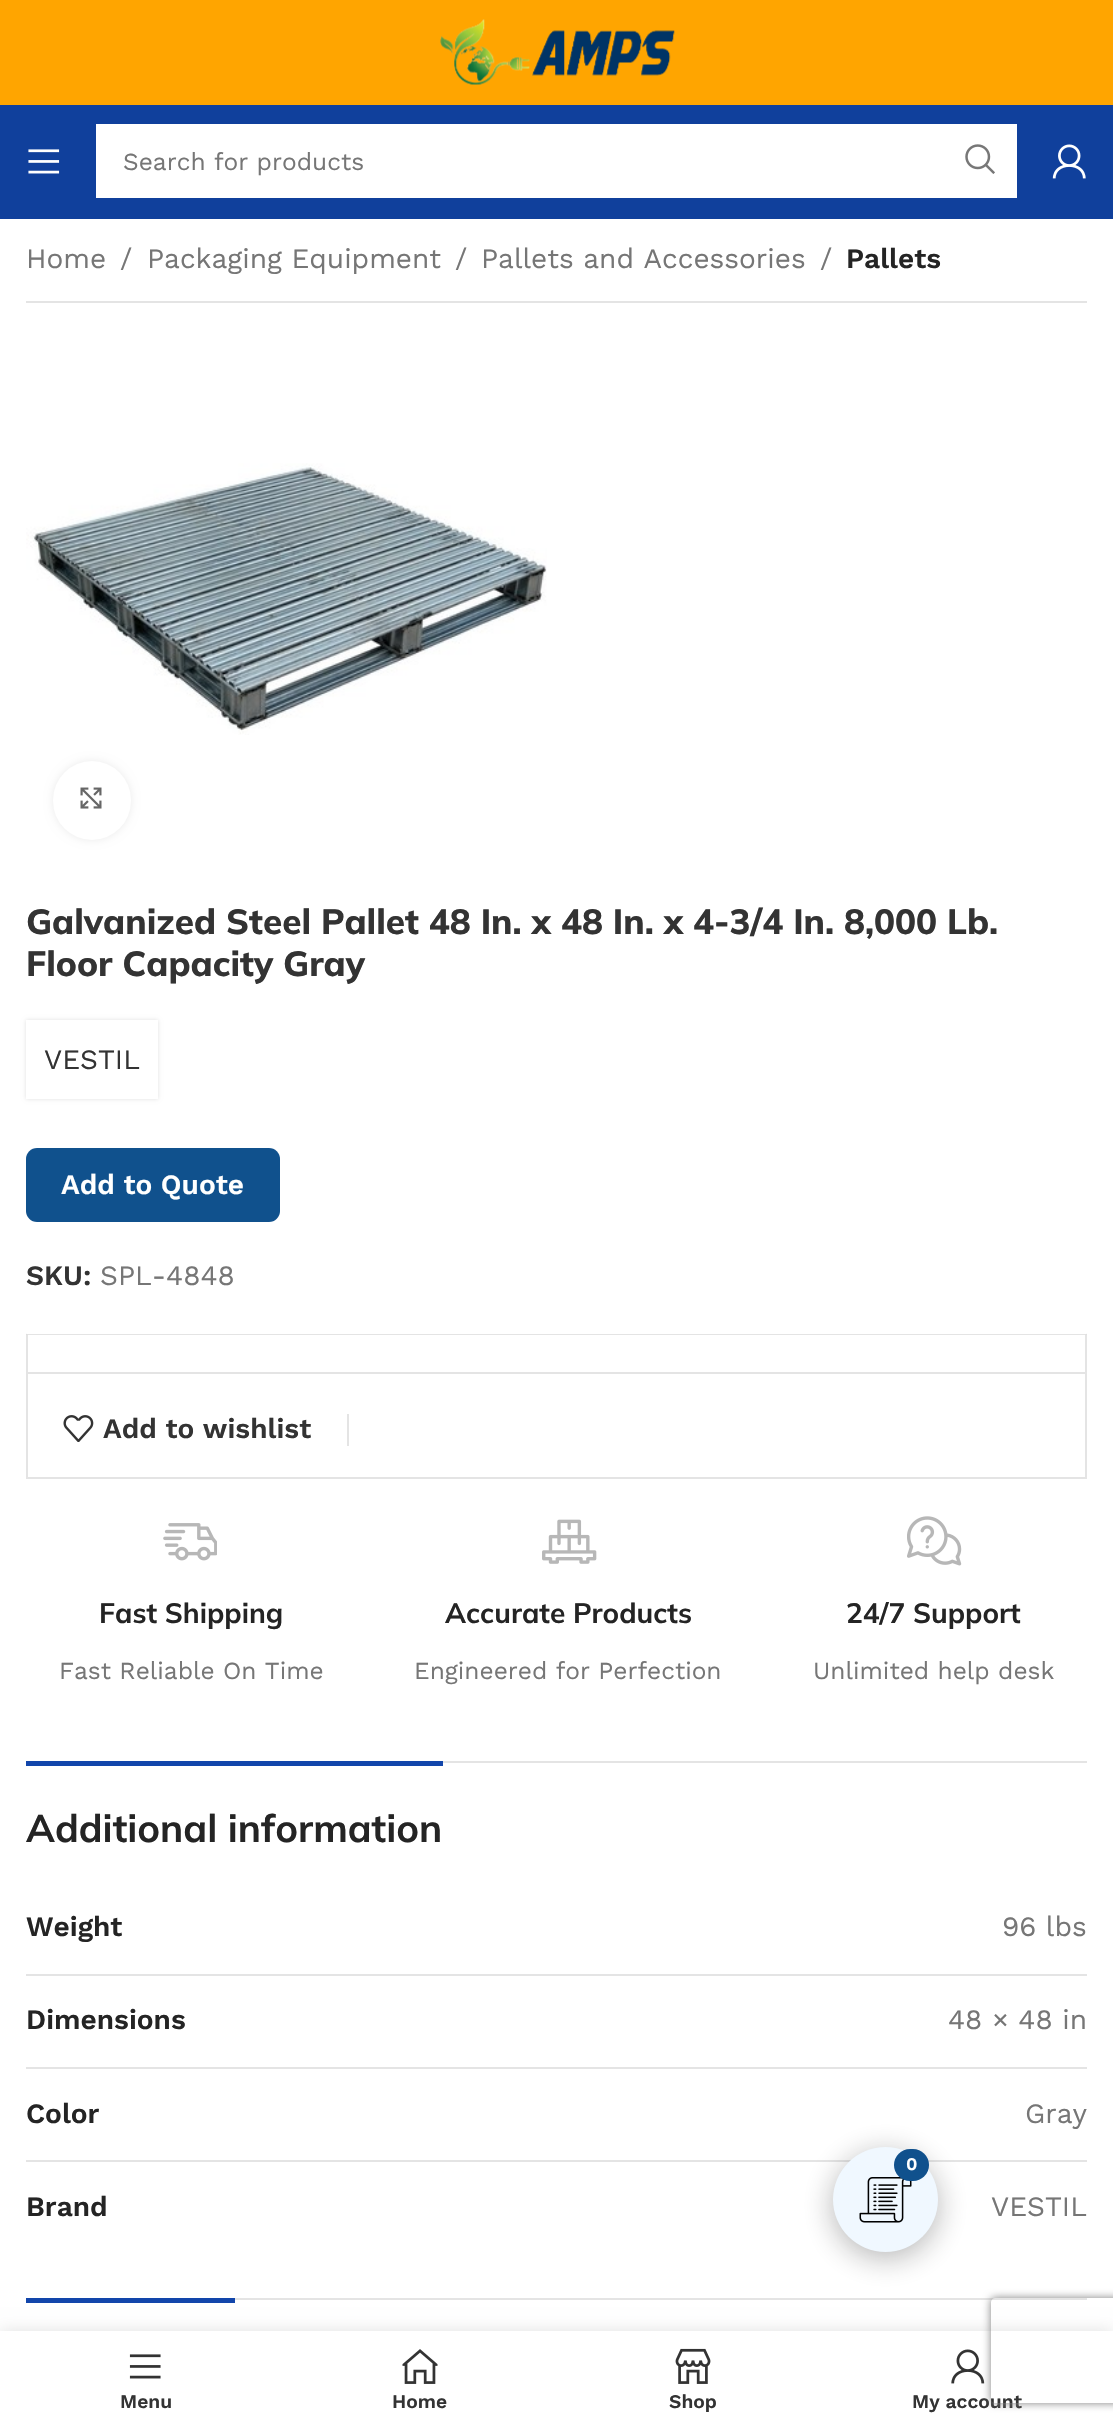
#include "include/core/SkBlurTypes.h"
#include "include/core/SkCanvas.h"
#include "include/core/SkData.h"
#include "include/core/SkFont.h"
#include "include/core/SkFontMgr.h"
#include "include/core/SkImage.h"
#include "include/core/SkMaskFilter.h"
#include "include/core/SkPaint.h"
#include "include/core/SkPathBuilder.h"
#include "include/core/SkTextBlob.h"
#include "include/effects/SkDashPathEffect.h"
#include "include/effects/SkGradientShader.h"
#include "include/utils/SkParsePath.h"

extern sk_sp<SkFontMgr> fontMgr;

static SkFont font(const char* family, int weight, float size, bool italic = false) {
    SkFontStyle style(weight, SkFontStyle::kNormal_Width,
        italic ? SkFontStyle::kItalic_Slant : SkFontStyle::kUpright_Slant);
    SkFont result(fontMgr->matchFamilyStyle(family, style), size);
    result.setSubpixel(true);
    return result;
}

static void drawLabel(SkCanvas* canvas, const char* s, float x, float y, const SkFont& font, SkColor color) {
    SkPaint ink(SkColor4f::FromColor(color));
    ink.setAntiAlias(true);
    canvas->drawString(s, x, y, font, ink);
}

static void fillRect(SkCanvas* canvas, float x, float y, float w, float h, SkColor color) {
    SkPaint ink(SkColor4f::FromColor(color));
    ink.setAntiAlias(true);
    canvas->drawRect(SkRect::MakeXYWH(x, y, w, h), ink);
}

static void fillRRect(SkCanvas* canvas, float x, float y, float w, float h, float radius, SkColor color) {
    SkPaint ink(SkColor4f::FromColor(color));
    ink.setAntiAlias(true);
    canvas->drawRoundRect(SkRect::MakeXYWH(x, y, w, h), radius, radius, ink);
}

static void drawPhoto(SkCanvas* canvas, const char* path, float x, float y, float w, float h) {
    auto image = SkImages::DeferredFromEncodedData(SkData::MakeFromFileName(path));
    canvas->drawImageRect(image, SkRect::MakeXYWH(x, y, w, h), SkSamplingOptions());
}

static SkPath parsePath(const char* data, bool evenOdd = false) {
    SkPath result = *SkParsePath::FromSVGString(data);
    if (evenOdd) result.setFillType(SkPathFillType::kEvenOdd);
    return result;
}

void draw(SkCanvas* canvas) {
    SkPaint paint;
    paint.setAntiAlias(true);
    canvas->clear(0xFFFFFFFF);
    fillRect(canvas, 0, 0, 1113, 105, 0xFFFFA500);
    fillRect(canvas, 0, 105, 1113, 114, 0xFF10409C);
    drawPhoto(canvas, "assets/img1.png", 440, 19, 235, 66);
    drawPhoto(canvas, "assets/img2.png", 28, 149, 32, 25);
    fillRect(canvas, 96, 124, 921, 74, 0xFFFFFFFF);
    SkFont font1 = font("Work Sans", 400, 24.5f);
    drawLabel(canvas, "Search for products", 123, 170, font1, 0xFF767676);
    drawPhoto(canvas, "assets/img3.png", 965, 144, 30, 30);
    drawPhoto(canvas, "assets/img4.png", 1052, 144, 34, 35);
    SkFont font2 = font("Work Sans", 400, 28);
    drawLabel(canvas, "Home", 26, 268, font2, 0xFF767676);
    drawLabel(canvas, "/", 120, 268, font2, 0xFF767676);
    drawLabel(canvas, "Packaging Equipment", 147, 268, font2, 0xFF767676);
    drawLabel(canvas, "/", 455, 268, font2, 0xFF767676);
    drawLabel(canvas, "Pallets and Accessories", 481, 268, font2, 0xFF767676);
    drawLabel(canvas, "/", 820, 268, font2, 0xFF767676);
    SkFont font3 = font("Work Sans", 600, 28);
    drawLabel(canvas, "Pallets", 846, 268, font3, 0xFF242424);
    fillRect(canvas, 26, 301, 1061, 2, 0xFFE4E4E4);
    drawPhoto(canvas, "assets/img5.png", 26, 463, 521, 272);
    paint.setColor(0x14000000);
    paint.setMaskFilter(SkMaskFilter::MakeBlur(kNormal_SkBlurStyle, 4.5f));
    canvas->drawRoundRect(SkRect::MakeXYWH(53, 761, 78, 79), 39, 39, paint);
    paint.setMaskFilter(nullptr);
    fillRRect(canvas, 53, 761, 78, 79, 39, 0xFFFFFFFF);
    drawPhoto(canvas, "assets/img6.png", 80, 787, 22, 22);
    SkFont font4 = font("Mulish", 800, 35);
    drawLabel(canvas, "Galvanized Steel Pallet 48 In. x 48 In. x 4-3/4 In. 8,000 Lb.", 26, 934, font4, 0xFF333333);
    drawLabel(canvas, "Floor Capacity Gray", 26, 976, font4, 0xFF333333);
    paint.setColor(0x1F000000);
    paint.setMaskFilter(SkMaskFilter::MakeBlur(kNormal_SkBlurStyle, 2));
    canvas->drawRect(SkRect::MakeXYWH(26, 1020, 132, 79), paint);
    paint.setMaskFilter(nullptr);
    fillRect(canvas, 26, 1020, 132, 79, 0xFFFFFFFF);
    drawLabel(canvas, "VESTIL", 44, 1069, font2, 0xFF333333);
    fillRRect(canvas, 26, 1148, 254, 74, 11, 0xFF10518D);
    drawLabel(canvas, "Add to Quote", 61, 1194, font3, 0xFFFFFFFF);
    drawLabel(canvas, "SKU:", 26, 1285, font3, 0xFF333333);
    drawLabel(canvas, "SPL-4848", 100, 1285, font2, 0xFF767676);
    paint.setColor(0xFFE4E4E4);
    canvas->drawPath(parsePath("M26 1334H1087L1085 1335H28Z"), paint);
    paint.setColor(0x33777777);
    canvas->drawPath(parsePath("M1087 1333.5V1372H1085V1335Z"), paint);
    canvas->drawPath(parsePath("M26 1372V1333.5L28 1335V1372Z"), paint);
    paint.setStroke(true);
    paint.setStrokeWidth(2);
    paint.setColor(0xFFE4E4E4);
    canvas->drawRect(SkRect::MakeXYWH(27, 1373, 1059, 105), paint);
    fillRect(canvas, 347, 1414, 2, 32, 0xFFE4E4E4);
    drawPhoto(canvas, "assets/img7.png", 63, 1415, 31, 27);
    drawLabel(canvas, "Add to wishlist", 103, 1438, font3, 0xFF333333);
    drawPhoto(canvas, "assets/img8.png", 163, 1523, 54, 38);
    SkFont font5 = font("Mulish", 700, 28);
    drawLabel(canvas, "Fast Shipping", 99, 1623, font5, 0xFF242424);
    drawLabel(canvas, "Fast Reliable On Time", 59, 1679, font1, 0xFF767676);
    drawPhoto(canvas, "assets/img9.png", 542, 1519, 55, 45);
    drawLabel(canvas, "Accurate Products", 445, 1623, font5, 0xFF242424);
    drawLabel(canvas, "Engineered for Perfection", 414, 1679, font1, 0xFF767676);
    drawPhoto(canvas, "assets/img10.png", 907, 1516, 55, 50);
    drawLabel(canvas, "24/7 Support", 846, 1623, font5, 0xFF242424);
    drawLabel(canvas, "Unlimited help desk", 813, 1679, font1, 0xFF767676);
    fillRect(canvas, 443, 1761, 644, 2, 0xFFE4E4E4);
    fillRect(canvas, 26, 1761, 417, 5, 0xFF1246AB);
    SkFont font6 = font("Mulish", 700, 38.5f);
    drawLabel(canvas, "Additional information", 26, 1842, font6, 0xFF242424);
    fillRect(canvas, 26, 1974, 1061, 2, 0xFFE4E4E4);
    drawLabel(canvas, "Weight", 26, 1936, font3, 0xFF242424);
    drawLabel(canvas, "96 lbs", 1002, 1936, font2, 0xFF767676);
    fillRect(canvas, 26, 2067, 1061, 2, 0xFFE4E4E4);
    drawLabel(canvas, "Dimensions", 26, 2029, font3, 0xFF242424);
    drawLabel(canvas, "48 × 48 in", 948, 2029, font2, 0xFF767676);
    fillRect(canvas, 26, 2160, 1061, 2, 0xFFE4E4E4);
    drawLabel(canvas, "Color", 26, 2123, font3, 0xFF242424);
    drawLabel(canvas, "Gray", 1025, 2123, font2, 0xFF767676);
    drawLabel(canvas, "Brand", 26, 2216, font3, 0xFF242424);
    drawLabel(canvas, "VESTIL", 991, 2216, font2, 0xFF767676);
    fillRect(canvas, 235, 2298, 852, 2, 0xFFE4E4E4);
    fillRect(canvas, 26, 2298, 209, 5, 0xFF1246AB);
    paint.setStroke(false);
    paint.setColor(0x4F101010);
    paint.setMaskFilter(SkMaskFilter::MakeBlur(kNormal_SkBlurStyle, 15));
    canvas->drawRoundRect(SkRect::MakeXYWH(833, 2153, 105, 105), 52.5f, 52.5f, paint);
    paint.setMaskFilter(nullptr);
    paint.setColor(0xFFF0F8FF);
    canvas->drawCircle(885.5f, 2199.5f, 52.5f, paint);
    drawPhoto(canvas, "assets/img11.png", 859, 2177, 53, 46);
    fillRRect(canvas, 894, 2149, 35, 32, 16, 0xFF10518D);
    SkFont font7 = font("Work Sans", 600, 18);
    drawLabel(canvas, "0", 906, 2170, font7, 0xFFFFFFFF);
    paint.setColor(0x1F000000);
    paint.setMaskFilter(SkMaskFilter::MakeBlur(kNormal_SkBlurStyle, 8));
    canvas->drawRect(SkRect::MakeXYWH(0, 2331, 1113, 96), paint);
    paint.setMaskFilter(nullptr);
    fillRect(canvas, 0, 2331, 1113, 95, 0xFFFFFFFF);
    drawPhoto(canvas, "assets/img12.png", 129, 2354, 32, 25);
    SkFont font8 = font("Work Sans", 600, 19.25f);
    drawLabel(canvas, "Menu", 120, 2408, font8, 0xFF333333);
    drawPhoto(canvas, "assets/img13.png", 402, 2349, 36, 35);
    drawLabel(canvas, "Home", 392, 2408, font8, 0xFF333333);
    drawPhoto(canvas, "assets/img14.png", 675, 2348, 36, 36);
    drawLabel(canvas, "Shop", 669, 2408, font8, 0xFF333333);
    drawPhoto(canvas, "assets/img15.png", 951, 2349, 34, 35);
    drawLabel(canvas, "My account", 912, 2408, font8, 0xFF333333);
    canvas->save();
    canvas->clipPath(parsePath("M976 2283H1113V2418H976ZM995 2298H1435C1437 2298 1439 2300 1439 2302V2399C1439 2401 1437 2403 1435 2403H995C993 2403 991 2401 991 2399V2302C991 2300 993 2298 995 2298Z", true), true);
    paint.setColor(0xFF808080);
    paint.setMaskFilter(SkMaskFilter::MakeBlur(kNormal_SkBlurStyle, 4.5f));
    canvas->drawRoundRect(SkRect::MakeXYWH(991, 2298, 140, 105), 4, 4, paint);
    paint.setMaskFilter(nullptr);
    canvas->restore();
}
